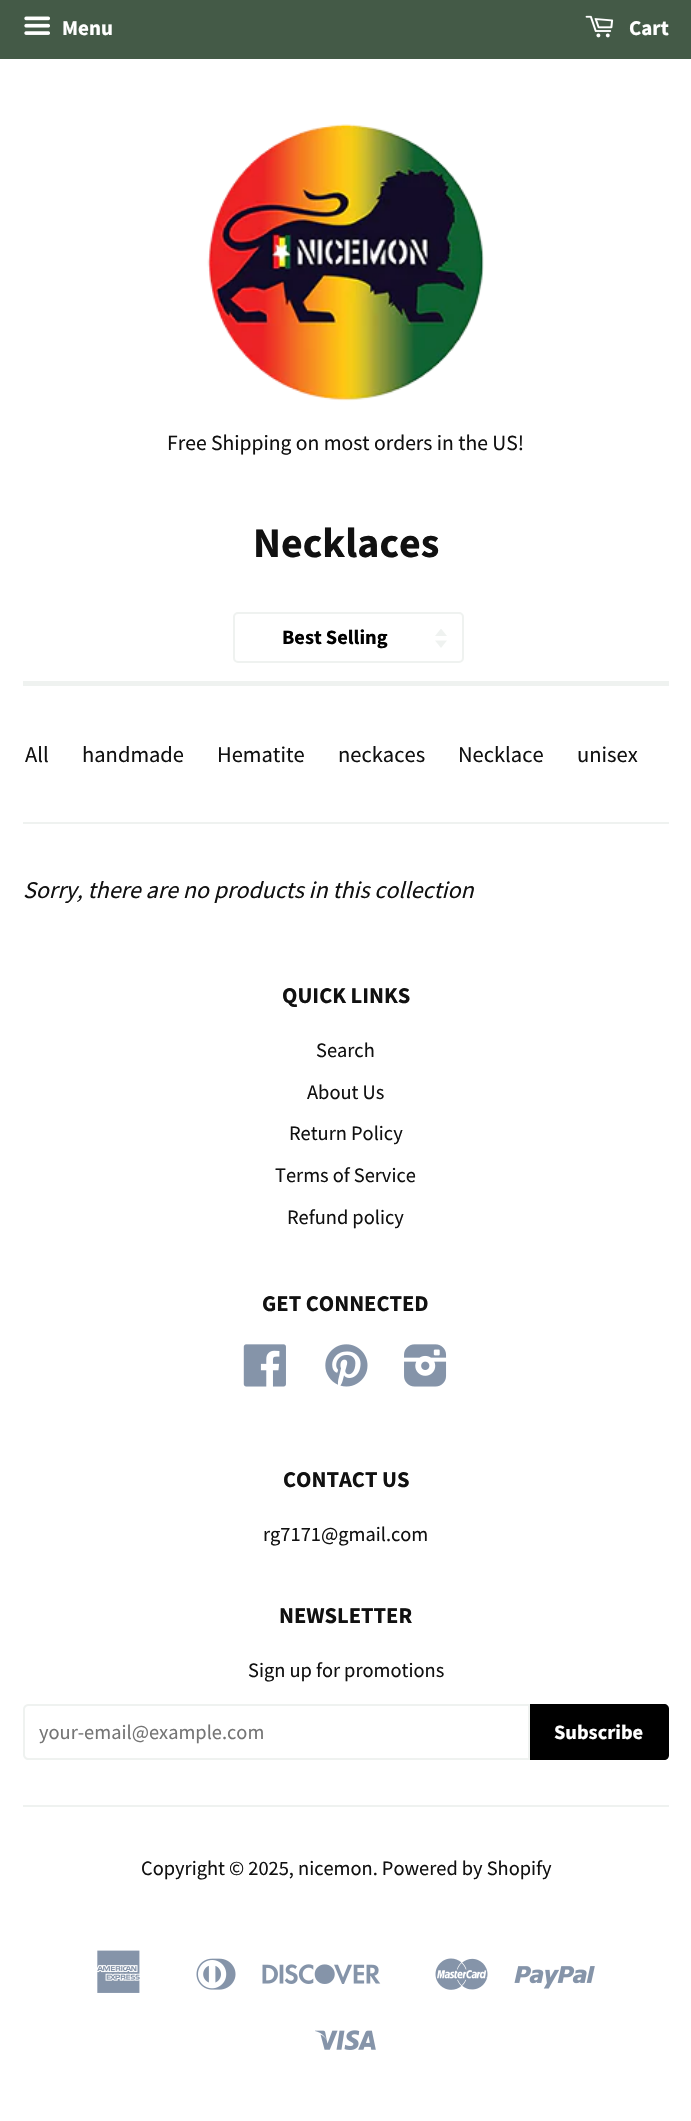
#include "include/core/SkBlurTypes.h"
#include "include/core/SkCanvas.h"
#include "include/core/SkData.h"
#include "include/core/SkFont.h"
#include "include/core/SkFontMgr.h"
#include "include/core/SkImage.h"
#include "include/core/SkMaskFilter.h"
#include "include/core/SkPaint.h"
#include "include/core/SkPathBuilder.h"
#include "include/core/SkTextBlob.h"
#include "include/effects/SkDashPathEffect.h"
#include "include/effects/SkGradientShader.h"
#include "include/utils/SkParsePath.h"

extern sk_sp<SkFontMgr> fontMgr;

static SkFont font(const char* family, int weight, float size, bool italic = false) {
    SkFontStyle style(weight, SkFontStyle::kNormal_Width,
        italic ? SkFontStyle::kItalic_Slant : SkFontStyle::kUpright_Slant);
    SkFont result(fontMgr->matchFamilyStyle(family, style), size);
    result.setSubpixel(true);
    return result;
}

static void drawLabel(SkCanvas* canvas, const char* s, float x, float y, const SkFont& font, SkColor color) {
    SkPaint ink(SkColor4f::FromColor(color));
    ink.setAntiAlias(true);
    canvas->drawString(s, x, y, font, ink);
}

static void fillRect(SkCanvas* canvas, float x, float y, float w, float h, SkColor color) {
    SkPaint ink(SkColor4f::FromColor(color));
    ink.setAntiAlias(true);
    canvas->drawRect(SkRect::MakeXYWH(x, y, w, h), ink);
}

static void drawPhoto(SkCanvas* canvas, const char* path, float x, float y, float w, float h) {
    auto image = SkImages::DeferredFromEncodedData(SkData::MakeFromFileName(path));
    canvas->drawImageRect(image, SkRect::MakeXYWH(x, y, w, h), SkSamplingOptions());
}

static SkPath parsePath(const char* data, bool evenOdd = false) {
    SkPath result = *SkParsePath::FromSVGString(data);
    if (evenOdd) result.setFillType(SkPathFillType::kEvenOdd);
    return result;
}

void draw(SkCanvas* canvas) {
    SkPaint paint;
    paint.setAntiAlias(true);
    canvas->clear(0xFFFFFFFF);
    fillRect(canvas, 0, 0, 691, 59, 0xFF445A47);
    drawPhoto(canvas, "assets/img1.png", 24, 16, 26, 19);
    SkFont font1 = font("Source Sans Pro", 700, 21);
    drawLabel(canvas, "Menu", 62, 35, font1, 0xFFFFFFFF);
    drawPhoto(canvas, "assets/img2.png", 585, 15, 29, 23);
    drawLabel(canvas, "Cart", 629, 35, font1, 0xFFFFFFFF);
    drawPhoto(canvas, "assets/img3.png", 207, 124, 277, 277);
    SkFont font2 = font("Source Sans Pro", 400, 21.6f);
    drawLabel(canvas, "Free Shipping on most orders in the US!", 167, 450, font2, 0xFF111111);
    fillRect(canvas, 23, 681, 646, 5, 0xFFEFF2F0);
    SkFont font3 = font("Source Sans Pro", 700, 42);
    drawLabel(canvas, "Necklaces", 253, 557, font3, 0xFF111111);
    drawPhoto(canvas, "assets/img4.png", 435, 629, 12, 19);
    paint.setStroke(true);
    paint.setStrokeWidth(2);
    paint.setColor(0xFFEFF2F0);
    canvas->drawRoundRect(SkRect::MakeXYWH(234, 613, 229, 49), 4, 4, paint);
    SkFont font4 = font("Source Sans Pro", 700, 20.4f);
    drawLabel(canvas, "Best Selling", 282, 644, font4, 0xFF000000);
    SkFont font5 = font("Source Sans Pro", 400, 22.5f);
    drawLabel(canvas, "All", 25, 762, font5, 0xFF111111);
    drawLabel(canvas, "handmade", 82, 762, font5, 0xFF111111);
    drawLabel(canvas, "Hematite", 217, 762, font5, 0xFF111111);
    drawLabel(canvas, "neckaces", 338, 762, font5, 0xFF111111);
    drawLabel(canvas, "Necklace", 458, 762, font5, 0xFF111111);
    drawLabel(canvas, "unisex", 577, 762, font5, 0xFF111111);
    fillRect(canvas, 23, 822, 646, 2, 0xFFEFF2F0);
    SkFont font6 = font("Source Sans Pro", 400, 24, true);
    drawLabel(canvas, "Sorry, there are no products in this collection", 23, 898, font6, 0xFF111111);
    SkFont font7 = font("Source Sans Pro", 700, 22.5f);
    drawLabel(canvas, "QUICK LINKS", 282, 1003, font7, 0xFF111111);
    SkFont font8 = font("Source Sans Pro", 400, 20.4f);
    drawLabel(canvas, "Search", 316, 1057, font8, 0xFF111111);
    drawLabel(canvas, "About Us", 307, 1099, font8, 0xFF111111);
    drawLabel(canvas, "Return Policy", 289, 1140, font8, 0xFF111111);
    drawLabel(canvas, "Terms of Service", 275, 1182, font8, 0xFF111111);
    drawLabel(canvas, "Refund policy", 287, 1224, font8, 0xFF111111);
    drawLabel(canvas, "GET CONNECTED", 262, 1311, font7, 0xFF111111);
    drawPhoto(canvas, "assets/img5.png", 243, 1344, 43, 43);
    drawPhoto(canvas, "assets/img6.png", 325, 1344, 43, 43);
    drawPhoto(canvas, "assets/img7.png", 404, 1344, 43, 43);
    drawLabel(canvas, "CONTACT US", 283, 1487, font7, 0xFF111111);
    drawLabel(canvas, "rg7171@gmail.com", 263, 1541, font8, 0xFF111111);
    drawLabel(canvas, "NEWSLETTER", 279, 1623, font7, 0xFF111111);
    drawLabel(canvas, "Sign up for promotions", 248, 1677, font8, 0xFF111111);
    canvas->drawPath(parsePath("M28 1705H529V1759H28C26 1759 24 1757 24 1755V1709C24 1707 26 1705 28 1705Z"), paint);
    drawLabel(canvas, "your-email@example.com", 39, 1739, font8, 0xFF757575);
    paint.setStroke(false);
    paint.setColor(0xFF000000);
    canvas->drawPath(parsePath("M530 1704H664C667 1704 669 1706 669 1709V1755C669 1758 667 1760 664 1760H530Z"), paint);
    drawLabel(canvas, "Subscribe", 554, 1739, font4, 0xFFFFFFFF);
    fillRect(canvas, 23, 1805, 646, 2, 0xFFEFF2F0);
    drawLabel(canvas, "Copyright © 2025, nicemon. Powered by Shopify", 141, 1875, font8, 0xFF111111);
    drawPhoto(canvas, "assets/img8.png", 97, 1950, 43, 43);
    drawPhoto(canvas, "assets/img9.png", 196, 1958, 40, 32);
    drawPhoto(canvas, "assets/img10.png", 262, 1964, 119, 20);
    drawPhoto(canvas, "assets/img11.png", 435, 1958, 53, 32);
    drawPhoto(canvas, "assets/img12.png", 514, 1966, 81, 23);
    drawPhoto(canvas, "assets/img13.png", 315, 2030, 61, 20);
}
